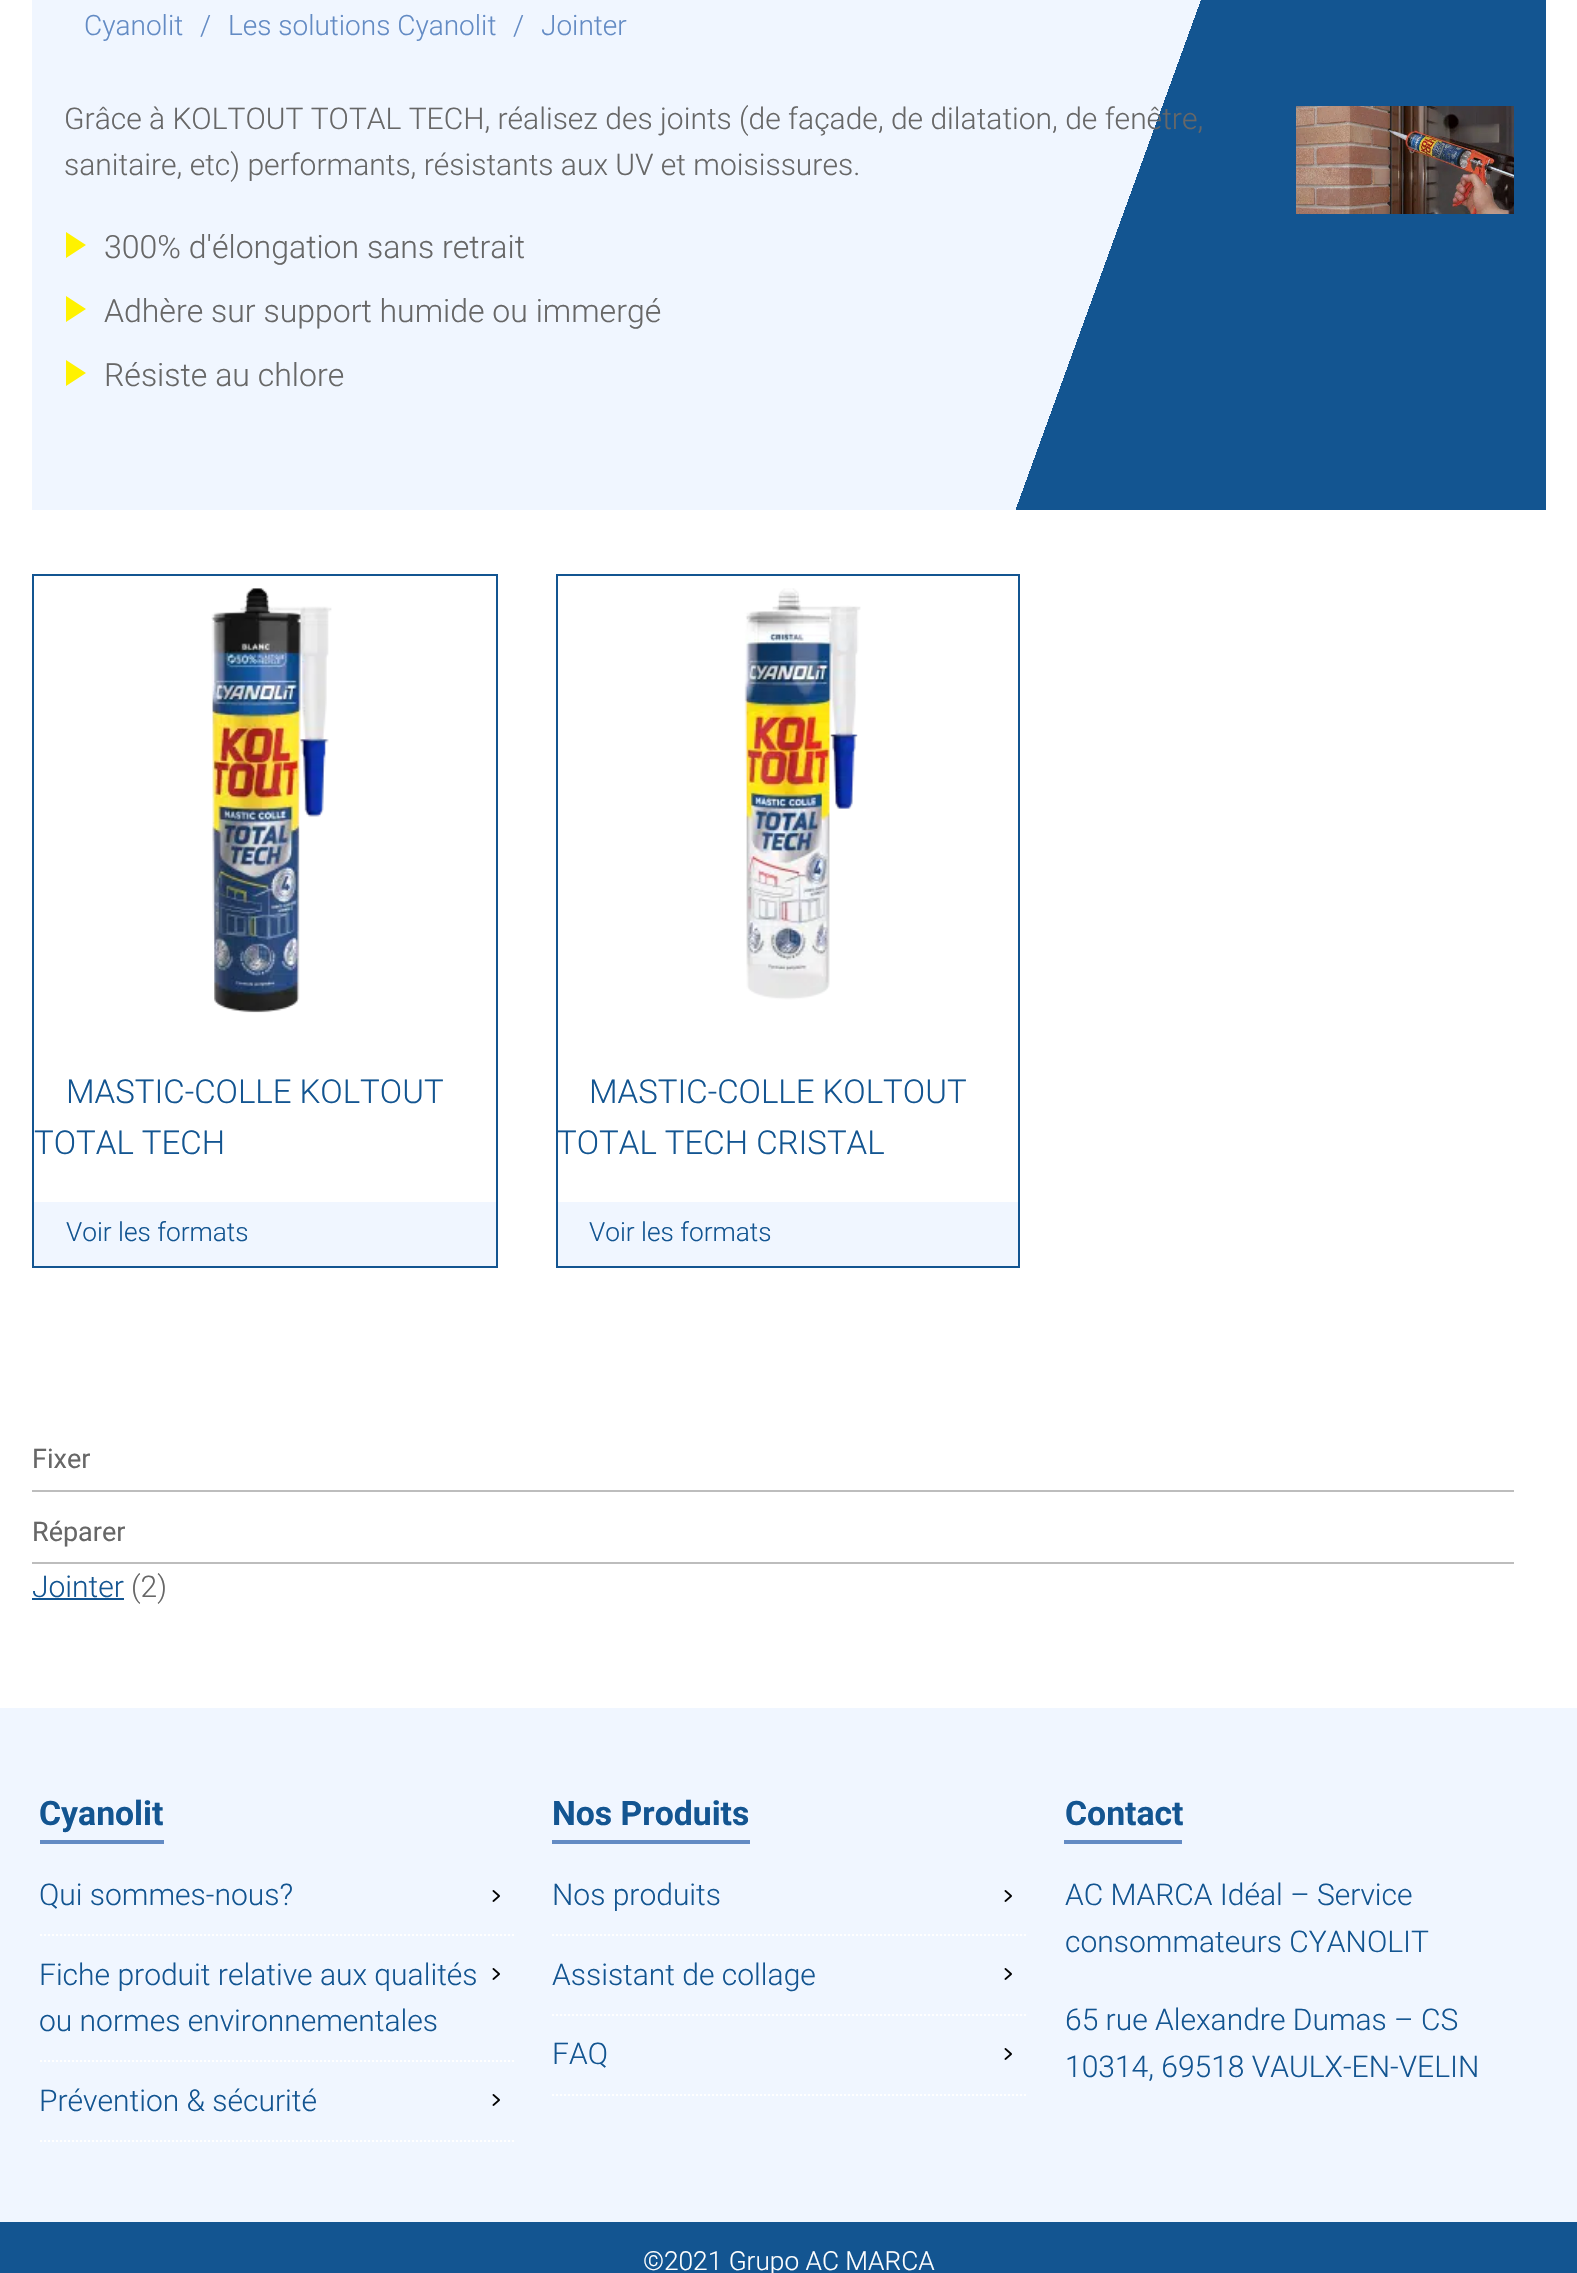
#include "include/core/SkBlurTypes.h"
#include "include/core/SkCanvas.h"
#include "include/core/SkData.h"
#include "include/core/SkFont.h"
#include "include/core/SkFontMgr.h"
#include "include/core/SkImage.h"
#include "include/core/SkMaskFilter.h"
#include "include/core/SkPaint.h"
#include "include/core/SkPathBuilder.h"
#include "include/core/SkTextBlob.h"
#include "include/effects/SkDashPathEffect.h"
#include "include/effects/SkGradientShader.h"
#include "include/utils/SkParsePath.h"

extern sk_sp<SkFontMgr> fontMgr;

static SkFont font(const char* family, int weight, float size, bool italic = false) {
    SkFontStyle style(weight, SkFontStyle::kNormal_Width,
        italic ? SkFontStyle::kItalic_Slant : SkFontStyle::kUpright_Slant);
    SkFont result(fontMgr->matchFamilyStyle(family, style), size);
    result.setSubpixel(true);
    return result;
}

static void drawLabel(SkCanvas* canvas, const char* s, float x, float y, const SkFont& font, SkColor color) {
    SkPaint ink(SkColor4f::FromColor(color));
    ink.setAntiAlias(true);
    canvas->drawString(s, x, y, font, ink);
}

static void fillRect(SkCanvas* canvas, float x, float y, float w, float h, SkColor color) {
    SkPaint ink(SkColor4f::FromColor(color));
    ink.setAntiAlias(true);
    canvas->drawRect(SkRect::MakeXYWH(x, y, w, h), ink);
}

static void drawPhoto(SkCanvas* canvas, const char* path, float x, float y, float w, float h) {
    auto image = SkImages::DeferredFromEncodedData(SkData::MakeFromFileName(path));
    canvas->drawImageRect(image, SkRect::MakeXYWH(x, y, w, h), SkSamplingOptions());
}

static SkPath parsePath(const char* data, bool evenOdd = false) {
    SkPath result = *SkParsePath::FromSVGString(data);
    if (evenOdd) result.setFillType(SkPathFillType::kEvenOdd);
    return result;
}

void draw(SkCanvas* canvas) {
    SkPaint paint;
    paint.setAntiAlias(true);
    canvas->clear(0xFFFFFFFF);
    {
        const SkColor colors[] = {0xFF135591, 0xFFF0F6FF};
        const float stops[] = {0.3f, 0.3f};
        const SkPoint ends[] = {{1570, 444}, {8, -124}};
        paint.setShader(SkGradientShader::MakeLinear(ends, colors, stops, 2, SkTileMode::kClamp));
        paint.setAlpha(255);
    }
    canvas->drawRect(SkRect::MakeXYWH(32, 0, 1514, 510), paint);
    SkFont font1 = font("Roboto", 300, 28);
    drawLabel(canvas, "Cyanolit", 84, 35, font1, 0xFF638BC4);
    drawLabel(canvas, "/", 200, 35, font1, 0xFF638BC4);
    drawLabel(canvas, "Les solutions Cyanolit", 228, 35, font1, 0xFF638BC4);
    drawLabel(canvas, "/", 513, 35, font1, 0xFF638BC4);
    drawLabel(canvas, "Jointer", 541, 35, font1, 0xFF638BC4);
    SkFont font2 = font("Roboto", 300, 30);
    drawLabel(canvas, "Grâce à KOLTOUT TOTAL TECH, réalisez des joints (de façade, de dilatation, de fenêtre,", 64, 129, font2, 0xFF676767);
    drawLabel(canvas, "sanitaire, etc) performants, résistants aux UV et moisissures.", 64, 175, font2, 0xFF676767);
    drawPhoto(canvas, "assets/img1.png", 66, 232, 20, 26);
    SkFont font3 = font("Roboto", 300, 32);
    drawLabel(canvas, "300% d'élongation sans retrait", 104, 258, font3, 0xFF676767);
    drawPhoto(canvas, "assets/img1.png", 66, 296, 20, 26);
    drawLabel(canvas, "Adhère sur support humide ou immergé", 104, 322, font3, 0xFF676767);
    drawPhoto(canvas, "assets/img1.png", 66, 360, 20, 26);
    drawLabel(canvas, "Résiste au chlore", 104, 386, font3, 0xFF676767);
    drawPhoto(canvas, "assets/img2.png", 1296, 106, 218, 108);
    paint.setStroke(true);
    paint.setStrokeWidth(2);
    paint.setShader(nullptr);
    paint.setColor(0xFF135591);
    canvas->drawRect(SkRect::MakeXYWH(33, 575, 464, 692), paint);
    drawPhoto(canvas, "assets/img3.png", 211, 588, 121, 425);
    SkFont font4 = font("Roboto", 300, 33);
    drawLabel(canvas, "MASTIC-COLLE KOLTOUT", 66, 1103, font4, 0xFF135591);
    drawLabel(canvas, "TOTAL TECH", 34, 1154, font4, 0xFF135591);
    fillRect(canvas, 34, 1202, 462, 64, 0xFFF0F6FF);
    SkFont font5 = font("Roboto", 300, 26.25f);
    drawLabel(canvas, "Voir les formats", 66, 1241, font5, 0xFF135591);
    canvas->drawRect(SkRect::MakeXYWH(557, 575, 462, 692), paint);
    drawPhoto(canvas, "assets/img4.png", 744, 588, 117, 412);
    drawLabel(canvas, "MASTIC-COLLE KOLTOUT", 589, 1103, font4, 0xFF135591);
    drawLabel(canvas, "TOTAL TECH CRISTAL", 557, 1154, font4, 0xFF135591);
    fillRect(canvas, 558, 1202, 460, 64, 0xFFF0F6FF);
    drawLabel(canvas, "Voir les formats", 589, 1241, font5, 0xFF135591);
    fillRect(canvas, 32, 1490, 1482, 2, 0xFFBDBDBD);
    SkFont font6 = font("Roboto", 400, 27);
    drawLabel(canvas, "Fixer", 32, 1468, font6, 0xFF676767);
    fillRect(canvas, 32, 1562, 1482, 2, 0xFFBDBDBD);
    drawLabel(canvas, "Réparer", 32, 1541, font6, 0xFF676767);
    drawLabel(canvas, "Jointer", 32, 1597, font2, 0xFF135591);
    fillRect(canvas, 32, 1598, 92, 2, 0xFF135591);
    drawLabel(canvas, "(2)", 131, 1597, font2, 0xFF676767);
    fillRect(canvas, 0, 1708, 1577, 514, 0xFFF0F6FF);
    fillRect(canvas, 40, 1840, 124, 4, 0xFF638BC4);
    SkFont font7 = font("Roboto", 700, 33.75f);
    drawLabel(canvas, "Cyanolit", 39, 1825, font7, 0xFF135591);
    paint.setColor(0xFFFFFFFF);
    paint.setPathEffect(SkDashPathEffect::Make({{2, 2}}, 0));
    canvas->drawPath(parsePath("M40 1935H514"), paint);
    paint.setPathEffect(nullptr);
    drawLabel(canvas, "Qui sommes-nous?", 39, 1905, font2, 0xFF135591);
    drawPhoto(canvas, "assets/img5.png", 492, 1890, 8, 12);
    paint.setPathEffect(SkDashPathEffect::Make({{2, 2}}, 0));
    canvas->drawPath(parsePath("M40 2061H514"), paint);
    paint.setPathEffect(nullptr);
    drawLabel(canvas, "Fiche produit relative aux qualités", 39, 1985, font2, 0xFF135591);
    drawPhoto(canvas, "assets/img5.png", 492, 1968, 8, 12);
    drawLabel(canvas, "ou normes environnementales", 39, 2031, font2, 0xFF135591);
    paint.setPathEffect(SkDashPathEffect::Make({{2, 2}}, 0));
    canvas->drawPath(parsePath("M40 2141H514"), paint);
    paint.setPathEffect(nullptr);
    drawLabel(canvas, "Prévention & sécurité", 39, 2111, font2, 0xFF135591);
    drawPhoto(canvas, "assets/img5.png", 492, 2094, 8, 12);
    fillRect(canvas, 552, 1840, 198, 4, 0xFF638BC4);
    drawLabel(canvas, "Nos Produits", 552, 1825, font7, 0xFF135591);
    paint.setPathEffect(SkDashPathEffect::Make({{2, 2}}, 0));
    canvas->drawPath(parsePath("M552 1935H1026"), paint);
    paint.setPathEffect(nullptr);
    drawLabel(canvas, "Nos produits", 552, 1905, font2, 0xFF135591);
    drawPhoto(canvas, "assets/img5.png", 1004, 1890, 8, 12);
    paint.setPathEffect(SkDashPathEffect::Make({{2, 2}}, 0));
    canvas->drawPath(parsePath("M552 2015H1026"), paint);
    paint.setPathEffect(nullptr);
    drawLabel(canvas, "Assistant de collage", 552, 1985, font2, 0xFF135591);
    drawPhoto(canvas, "assets/img5.png", 1004, 1968, 8, 12);
    paint.setPathEffect(SkDashPathEffect::Make({{2, 2}}, 0));
    canvas->drawPath(parsePath("M552 2095H1026"), paint);
    paint.setPathEffect(nullptr);
    drawLabel(canvas, "FAQ", 552, 2064, font2, 0xFF135591);
    drawPhoto(canvas, "assets/img5.png", 1004, 2048, 8, 12);
    fillRect(canvas, 1064, 1840, 118, 4, 0xFF638BC4);
    drawLabel(canvas, "Contact", 1065, 1825, font7, 0xFF135591);
    drawLabel(canvas, "AC MARCA Idéal – Service", 1065, 1905, font2, 0xFF135591);
    drawLabel(canvas, "consommateurs CYANOLIT", 1065, 1952, font2, 0xFF135591);
    drawLabel(canvas, "65 rue Alexandre Dumas – CS", 1065, 2030, font2, 0xFF135591);
    drawLabel(canvas, "10314, 69518 VAULX-EN-VELIN", 1065, 2077, font2, 0xFF135591);
    fillRect(canvas, 0, 2222, 1577, 51, 0xFF135591);
    drawLabel(canvas, "©2021 Grupo AC MARCA", 643, 2270, font5, 0xFFFFFFFF);
}
